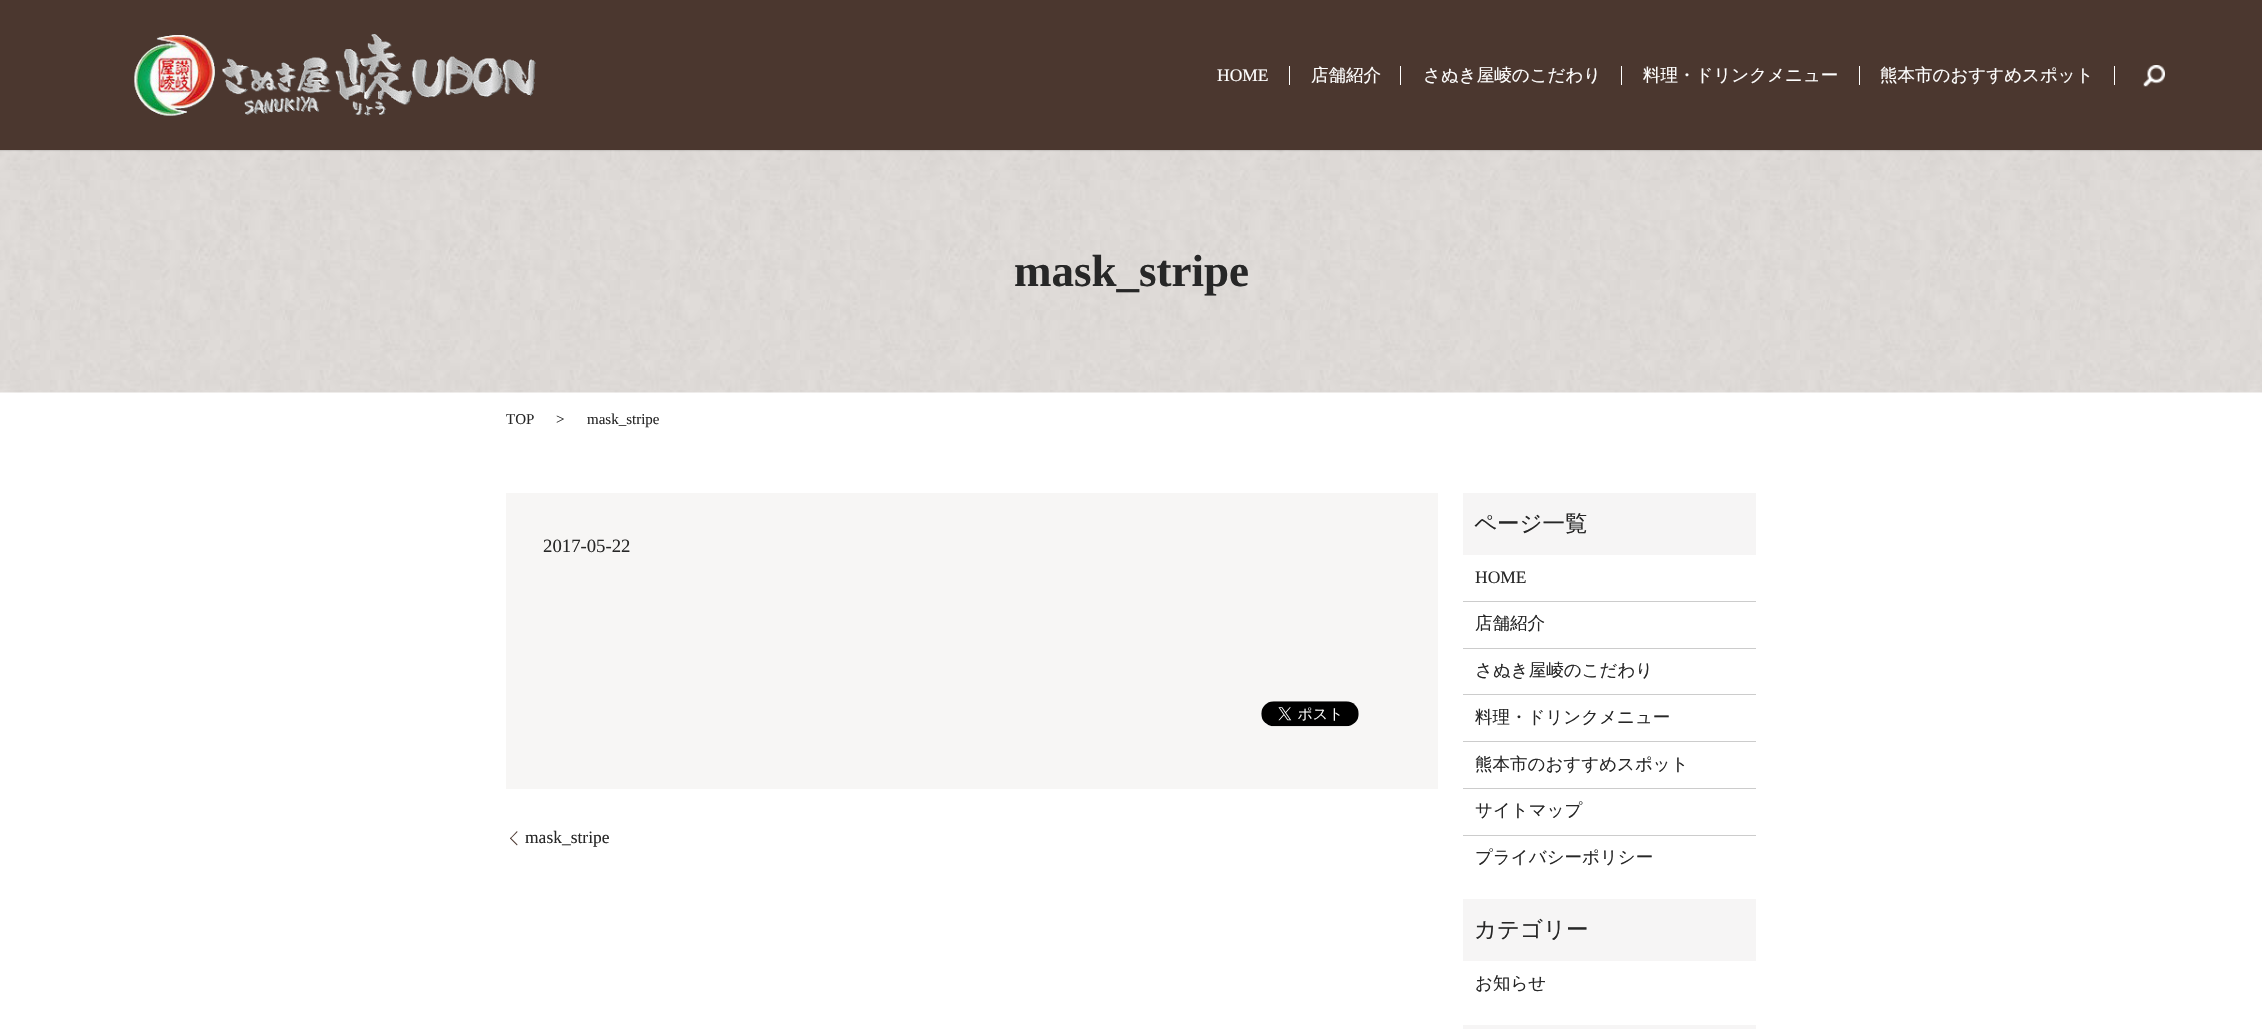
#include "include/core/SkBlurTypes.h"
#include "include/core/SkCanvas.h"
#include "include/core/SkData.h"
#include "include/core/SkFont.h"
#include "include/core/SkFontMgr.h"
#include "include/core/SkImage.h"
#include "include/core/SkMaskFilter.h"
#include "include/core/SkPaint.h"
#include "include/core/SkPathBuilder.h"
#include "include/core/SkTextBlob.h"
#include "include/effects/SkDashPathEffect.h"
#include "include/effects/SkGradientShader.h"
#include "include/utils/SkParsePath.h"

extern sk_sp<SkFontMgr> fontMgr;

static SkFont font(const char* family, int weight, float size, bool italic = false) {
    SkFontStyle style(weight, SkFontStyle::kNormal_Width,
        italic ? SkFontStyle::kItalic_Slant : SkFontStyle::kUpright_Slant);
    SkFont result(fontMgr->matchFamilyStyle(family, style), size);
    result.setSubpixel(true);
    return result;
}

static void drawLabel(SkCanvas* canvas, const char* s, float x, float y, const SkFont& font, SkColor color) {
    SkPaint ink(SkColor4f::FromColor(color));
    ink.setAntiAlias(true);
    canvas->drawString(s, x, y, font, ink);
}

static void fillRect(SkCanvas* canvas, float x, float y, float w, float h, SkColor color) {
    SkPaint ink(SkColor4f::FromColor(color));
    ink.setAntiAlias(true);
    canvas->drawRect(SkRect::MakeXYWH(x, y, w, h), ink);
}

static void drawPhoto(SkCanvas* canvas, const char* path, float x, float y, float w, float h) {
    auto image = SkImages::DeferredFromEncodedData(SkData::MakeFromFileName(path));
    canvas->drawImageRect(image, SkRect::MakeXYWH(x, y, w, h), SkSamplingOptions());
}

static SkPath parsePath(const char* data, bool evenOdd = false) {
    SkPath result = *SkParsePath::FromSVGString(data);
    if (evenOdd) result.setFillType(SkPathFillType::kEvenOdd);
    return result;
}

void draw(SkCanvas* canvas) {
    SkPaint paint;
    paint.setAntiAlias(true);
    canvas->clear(0xFFFFFFFF);
    drawPhoto(canvas, "assets/img3.png", 0, 150, 2262, 243);
    paint.setColor(0x1A000000);
    paint.setMaskFilter(SkMaskFilter::MakeBlur(kNormal_SkBlurStyle, 0.5f));
    canvas->drawRect(SkRect::MakeXYWH(0, 1, 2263, 150), paint);
    paint.setMaskFilter(nullptr);
    fillRect(canvas, 0, 0, 2262, 150, 0xFF4B372F);
    drawPhoto(canvas, "assets/img1.png", 134, 34, 402, 82);
    SkFont font1 = font("Liberation Serif", 400, 17.5f);
    drawLabel(canvas, "HOME", 1217, 81, font1, 0xFFFFFFFF);
    fillRect(canvas, 1289, 66, 1, 19, 0xFFFFFFFF);
    SkFont font2 = font("WenQuanYi Zen Hei", 500, 17.5f);
    drawLabel(canvas, "店舗紹介", 1311, 81, font2, 0xFFFFFFFF);
    fillRect(canvas, 1400, 66, 1, 19, 0xFFFFFFFF);
    drawLabel(canvas, "さぬき屋崚のこだわり", 1423, 81, font2, 0xFFFFFFFF);
    fillRect(canvas, 1621, 66, 1, 19, 0xFFFFFFFF);
    drawLabel(canvas, "料理・ドリンクメニュー", 1643, 81, font2, 0xFFFFFFFF);
    fillRect(canvas, 1859, 66, 1, 19, 0xFFFFFFFF);
    drawLabel(canvas, "熊本市のおすすめスポット", 1880, 81, font2, 0xFFFFFFFF);
    fillRect(canvas, 2114, 66, 1, 19, 0xFFFFFFFF);
    drawPhoto(canvas, "assets/img2.png", 2143, 65, 22, 22);
    SkFont font3 = font("Liberation Serif", 700, 45);
    drawLabel(canvas, "mask_stripe", 1014, 286, font3, 0xFF272727);
    SkFont font4 = font("Liberation Serif", 400, 15);
    drawLabel(canvas, "TOP", 506, 424, font4, 0xFF272727);
    drawLabel(canvas, ">", 556, 424, font4, 0xFF272727);
    drawLabel(canvas, "mask_stripe", 587, 424, font4, 0xFF272727);
    fillRect(canvas, 506, 493, 932, 296, 0xFFF7F6F5);
    SkFont font5 = font("Liberation Serif", 400, 18.75f);
    drawLabel(canvas, "2017-05-22", 543, 552, font5, 0xFF272727);
    drawPhoto(canvas, "assets/img4.png", 1261, 701, 98, 26);
    paint.setColor(0xFF4B372F);
    canvas->drawPath(parsePath("M510 838.5L517 831L517.5 832L510.5 839Z"), paint);
    drawLabel(canvas, "mask_stripe", 525, 843, font1, 0xFF272727);
    canvas->drawPath(parsePath("M517 845.5L510 838.5L510.5 837.5L517.5 844.5Z"), paint);
    fillRect(canvas, 1463, 493, 293, 62, 0xFFF6F5F5);
    SkFont font6 = font("WenQuanYi Zen Hei", 500, 22.5f);
    drawLabel(canvas, "ページ一覧", 1474, 531, font6, 0xFF272727);
    fillRect(canvas, 1463, 601, 293, 1, 0xFFCCCCCC);
    drawLabel(canvas, "HOME", 1475, 583, font1, 0xFF272727);
    fillRect(canvas, 1463, 648, 293, 1, 0xFFCCCCCC);
    drawLabel(canvas, "店舗紹介", 1475, 629, font2, 0xFF272727);
    fillRect(canvas, 1463, 694, 293, 1, 0xFFCCCCCC);
    drawLabel(canvas, "さぬき屋崚のこだわり", 1475, 676, font2, 0xFF272727);
    fillRect(canvas, 1463, 741, 293, 1, 0xFFCCCCCC);
    drawLabel(canvas, "料理・ドリンクメニュー", 1475, 723, font2, 0xFF272727);
    fillRect(canvas, 1463, 788, 293, 1, 0xFFCCCCCC);
    drawLabel(canvas, "熊本市のおすすめスポット", 1475, 770, font2, 0xFF272727);
    fillRect(canvas, 1463, 835, 293, 1, 0xFFCCCCCC);
    drawLabel(canvas, "サイトマップ", 1475, 816, font2, 0xFF272727);
    drawLabel(canvas, "プライバシーポリシー", 1475, 863, font2, 0xFF272727);
    fillRect(canvas, 1463, 899, 293, 62, 0xFFF6F5F5);
    drawLabel(canvas, "カテゴリー", 1474, 937, font6, 0xFF272727);
    drawLabel(canvas, "お知らせ", 1475, 989, font2, 0xFF272727);
    fillRect(canvas, 1463, 1025, 293, 4, 0xFFF6F5F5);
}
